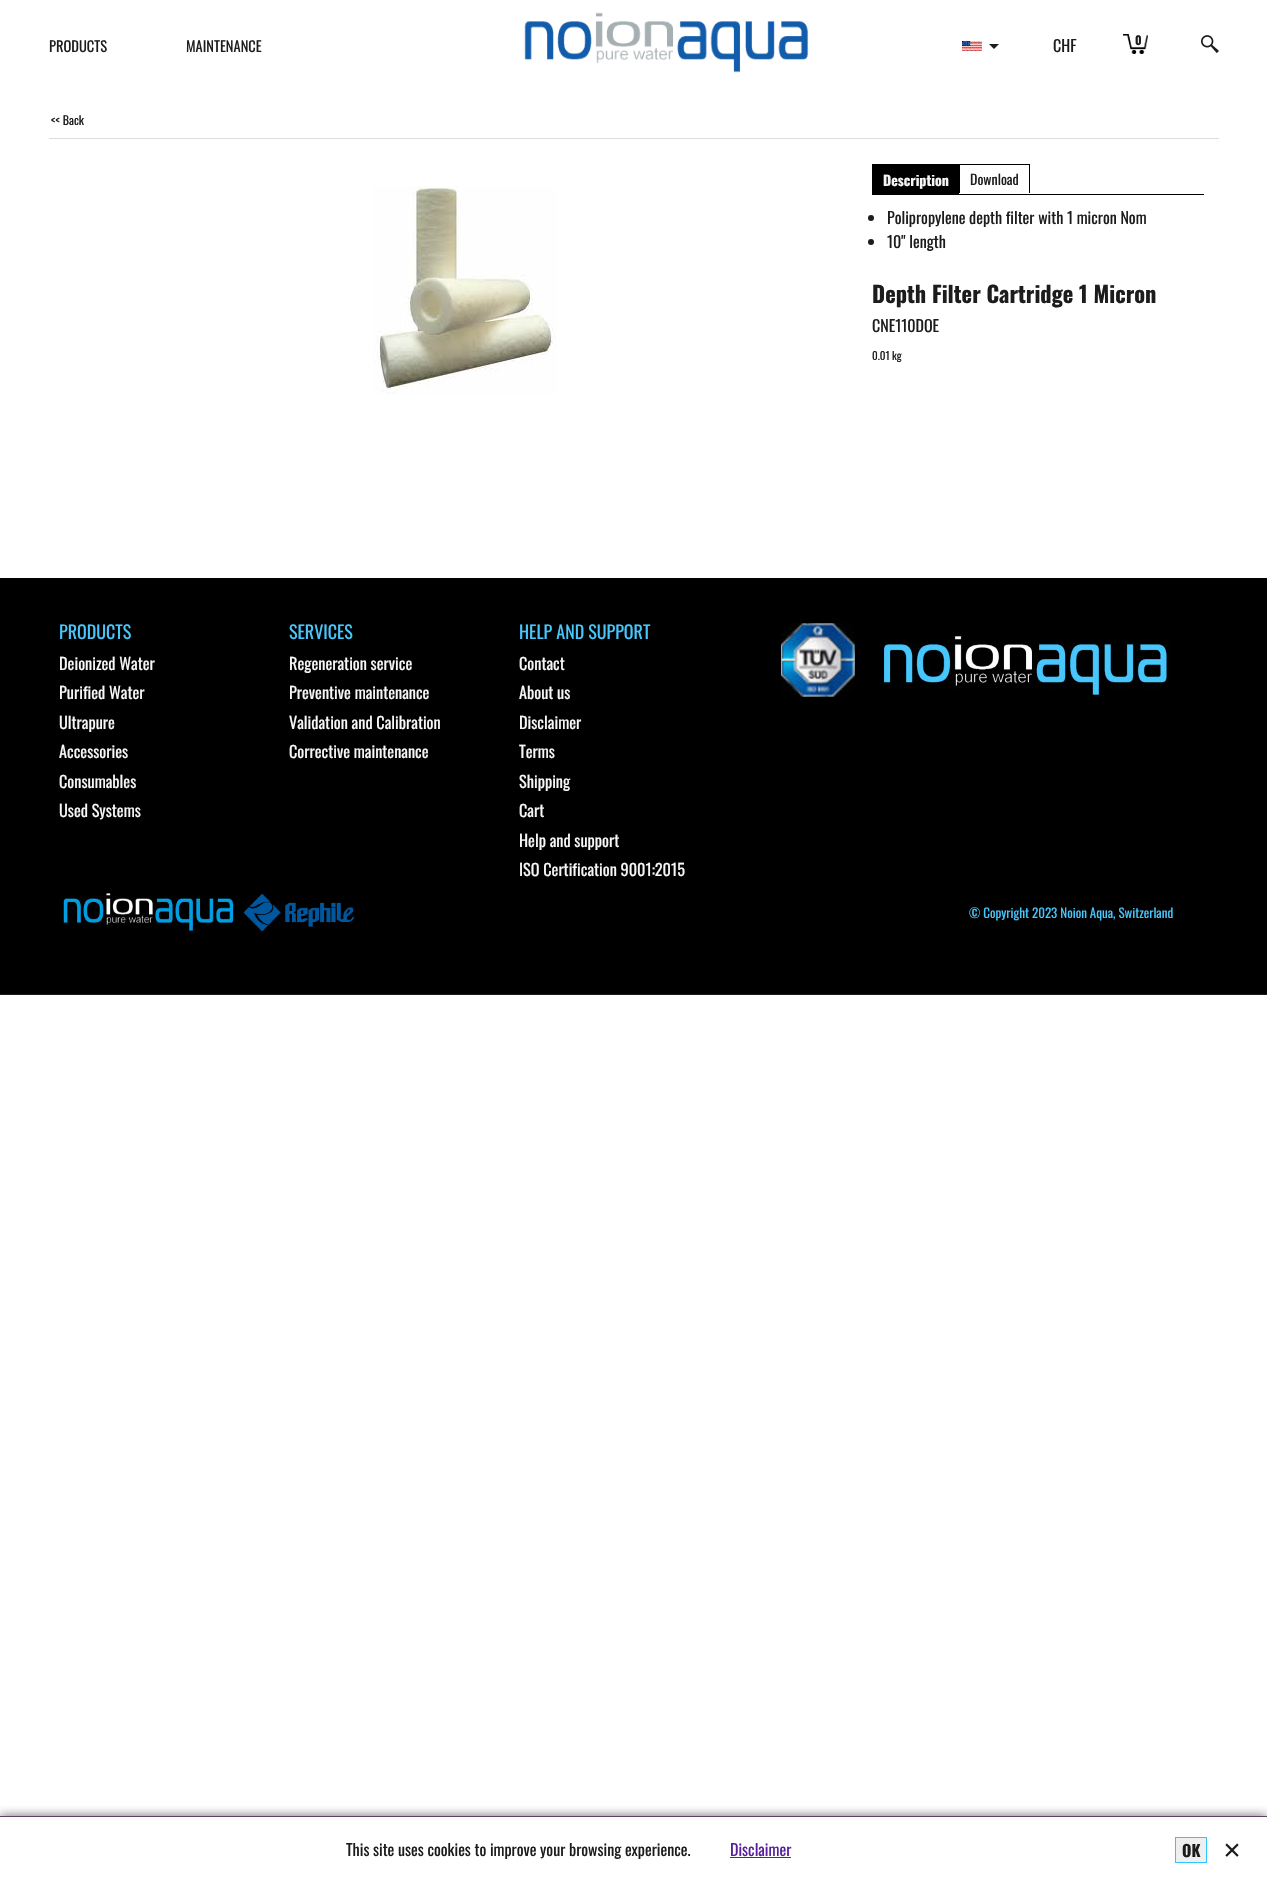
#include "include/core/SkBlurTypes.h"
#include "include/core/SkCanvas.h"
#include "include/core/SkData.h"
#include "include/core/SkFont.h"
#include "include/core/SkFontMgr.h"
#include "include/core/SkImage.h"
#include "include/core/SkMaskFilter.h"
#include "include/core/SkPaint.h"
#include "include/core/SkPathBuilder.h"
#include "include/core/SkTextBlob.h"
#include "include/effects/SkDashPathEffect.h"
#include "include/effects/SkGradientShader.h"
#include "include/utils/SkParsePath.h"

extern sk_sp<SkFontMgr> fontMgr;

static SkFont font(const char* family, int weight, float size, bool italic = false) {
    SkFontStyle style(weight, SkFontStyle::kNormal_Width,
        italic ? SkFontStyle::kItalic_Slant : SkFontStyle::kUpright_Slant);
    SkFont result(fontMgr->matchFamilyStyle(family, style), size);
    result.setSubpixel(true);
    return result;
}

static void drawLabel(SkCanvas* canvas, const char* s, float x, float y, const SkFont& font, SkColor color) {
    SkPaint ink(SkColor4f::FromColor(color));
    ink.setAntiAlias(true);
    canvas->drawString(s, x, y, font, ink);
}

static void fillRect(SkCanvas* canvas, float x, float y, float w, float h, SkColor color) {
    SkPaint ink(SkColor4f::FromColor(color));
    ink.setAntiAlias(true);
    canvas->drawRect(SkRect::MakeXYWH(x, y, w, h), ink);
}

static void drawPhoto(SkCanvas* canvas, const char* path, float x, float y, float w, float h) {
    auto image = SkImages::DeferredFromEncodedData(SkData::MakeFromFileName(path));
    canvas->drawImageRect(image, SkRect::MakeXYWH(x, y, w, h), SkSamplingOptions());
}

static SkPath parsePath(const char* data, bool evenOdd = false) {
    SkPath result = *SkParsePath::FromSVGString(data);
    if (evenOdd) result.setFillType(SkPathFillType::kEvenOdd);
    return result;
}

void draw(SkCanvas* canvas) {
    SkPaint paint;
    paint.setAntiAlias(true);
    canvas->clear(0xFFFFFFFF);
    SkFont font1 = font("Oswald", 400, 14.5f);
    drawLabel(canvas, "PRODUCTS", 49, 52, font1, 0xFF1C1C1C);
    drawLabel(canvas, "MAINTENANCE", 186, 52, font1, 0xFF1C1C1C);
    drawPhoto(canvas, "assets/img1.png", 524, 12, 285, 61);
    drawPhoto(canvas, "assets/img2.png", 962, 41, 20, 10);
    paint.setColor(0xFF1C1C1C);
    canvas->drawPath(parsePath("M989 44L994 49L999 44Z"), paint);
    SkFont font2 = font("Oswald", 400, 16);
    drawLabel(canvas, "CHF", 1053, 52, font2, 0xFF1C1C1C);
    drawPhoto(canvas, "assets/img3.png", 1123, 34, 25, 20);
    SkFont font3 = font("Oswald", 700, 12);
    drawLabel(canvas, "0", 1135, 45, font3, 0xFF1C1C1C);
    drawPhoto(canvas, "assets/img4.png", 1201, 35, 18, 18);
    fillRect(canvas, 49, 138, 1170, 1, 0xFFDEDEDE);
    SkFont font4 = font("Oswald", 400, 12);
    drawLabel(canvas, "<< Back", 51, 125, font4, 0xFF1C1C1C);
    drawPhoto(canvas, "assets/img5.png", 373, 186, 184, 209);
    fillRect(canvas, 872, 164, 87, 31, 0xFF000000);
    SkFont font5 = font("Oswald", 700, 14);
    drawLabel(canvas, "Description", 883, 186, font5, 0xFFF7F7F7);
    fillRect(canvas, 959, 164, 71, 1, 0xFF000000);
    fillRect(canvas, 1029, 164, 1, 29, 0xFF000000);
    fillRect(canvas, 959, 164, 1, 29, 0xFF000000);
    SkFont font6 = font("Oswald", 400, 14);
    drawLabel(canvas, "Download", 970, 185, font6, 0xFF1C1C1C);
    fillRect(canvas, 959, 194, 245, 1, 0xFF000000);
    canvas->drawCircle(871, 218, 3, paint);
    drawLabel(canvas, "Polipropylene depth filter with 1 micron Nom", 887, 224, font2, 0xFF1C1C1C);
    canvas->drawCircle(871, 242, 3, paint);
    drawLabel(canvas, "10\" length", 887, 248, font2, 0xFF1C1C1C);
    SkFont font7 = font("Oswald", 700, 22.4f);
    drawLabel(canvas, "Depth Filter Cartridge 1 Micron", 872, 303, font7, 0xFF1C1C1C);
    drawLabel(canvas, "CNE110DOE", 872, 332, font2, 0xFF1C1C1C);
    SkFont font8 = font("Oswald", 400, 11);
    drawLabel(canvas, "0.01 kg", 872, 360, font8, 0xFF1C1C1C);
    fillRect(canvas, 0, 578, 1267, 416, 0xFF000000);
    SkFont font9 = font("Oswald", 400, 18);
    drawLabel(canvas, "PRODUCTS", 59, 639, font9, 0xFF47C7FD);
    SkFont font10 = font("Oswald", 400, 16.25f);
    drawLabel(canvas, "Deionized Water", 59, 670, font10, 0xFFF7F7F7);
    drawLabel(canvas, "Purified Water", 59, 699, font10, 0xFFF7F7F7);
    drawLabel(canvas, "Ultrapure", 59, 729, font10, 0xFFF7F7F7);
    drawLabel(canvas, "Accessories", 59, 758, font10, 0xFFF7F7F7);
    drawLabel(canvas, "Consumables", 59, 788, font10, 0xFFF7F7F7);
    drawLabel(canvas, "Used Systems", 59, 817, font10, 0xFFF7F7F7);
    drawLabel(canvas, "SERVICES", 289, 639, font9, 0xFF47C7FD);
    drawLabel(canvas, "Regeneration service", 289, 670, font10, 0xFFF7F7F7);
    drawLabel(canvas, "Preventive maintenance", 289, 699, font10, 0xFFF7F7F7);
    drawLabel(canvas, "Validation and Calibration", 289, 729, font10, 0xFFF7F7F7);
    drawLabel(canvas, "Corrective maintenance", 289, 758, font10, 0xFFF7F7F7);
    drawLabel(canvas, "HELP AND SUPPORT", 519, 639, font9, 0xFF47C7FD);
    drawLabel(canvas, "Contact", 519, 670, font10, 0xFFF7F7F7);
    drawLabel(canvas, "About us", 519, 699, font10, 0xFFF7F7F7);
    drawLabel(canvas, "Disclaimer", 519, 729, font10, 0xFFF7F7F7);
    drawLabel(canvas, "Terms", 519, 758, font10, 0xFFF7F7F7);
    drawLabel(canvas, "Shipping", 519, 788, font10, 0xFFF7F7F7);
    drawLabel(canvas, "Cart", 519, 817, font10, 0xFFF7F7F7);
    drawLabel(canvas, "Help and support", 519, 847, font10, 0xFFF7F7F7);
    drawLabel(canvas, "ISO Certification 9001:2015", 519, 876, font10, 0xFFF7F7F7);
    drawPhoto(canvas, "assets/img6.png", 781, 623, 74, 74);
    drawPhoto(canvas, "assets/img7.png", 884, 636, 288, 59);
    drawPhoto(canvas, "assets/img8.png", 60, 893, 174, 39);
    drawPhoto(canvas, "assets/img9.png", 243, 893, 112, 39);
    SkFont font11 = font("Oswald", 400, 13);
    drawLabel(canvas, "© Copyright 2023 Noion Aqua, Switzerland", 969, 918, font11, 0xFF47C7FD);
    fillRect(canvas, 0, 994, 1267, 1, 0xFF1C1C1C);
    canvas->save();
    canvas->clipRect(SkRect::MakeXYWH(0, 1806, 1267, 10));
    paint.setColor(0xFF666666);
    paint.setMaskFilter(SkMaskFilter::MakeBlur(kNormal_SkBlurStyle, 5));
    canvas->drawRect(SkRect::MakeXYWH(0, 1816, 1267, 67), paint);
    paint.setMaskFilter(nullptr);
    canvas->restore();
    fillRect(canvas, 0, 1816, 1267, 1, 0xFF614166);
    drawLabel(canvas, "This site uses cookies to improve your browsing experience.", 346, 1856, font2, 0xFF1C1C1C);
    drawLabel(canvas, "Disclaimer", 730, 1856, font2, 0xFF571F9C);
    fillRect(canvas, 730, 1857, 61, 1, 0xFF571F9C);
    paint.setColor(0xFFEFEFEF);
    canvas->drawRect(SkRect::MakeXYWH(1175.5f, 1837.5f, 31, 25), paint);
    paint.setStroke(true);
    paint.setStrokeWidth(1);
    paint.setColor(0xFF2DC7FD);
    canvas->drawRect(SkRect::MakeXYWH(1175.5f, 1837.5f, 31, 25), paint);
    SkFont font12 = font("Oswald", 700, 16);
    drawLabel(canvas, "OK", 1182, 1857, font12, 0xFF1C1C1C);
    drawPhoto(canvas, "assets/img10.png", 1225, 1843, 14, 14);
}
